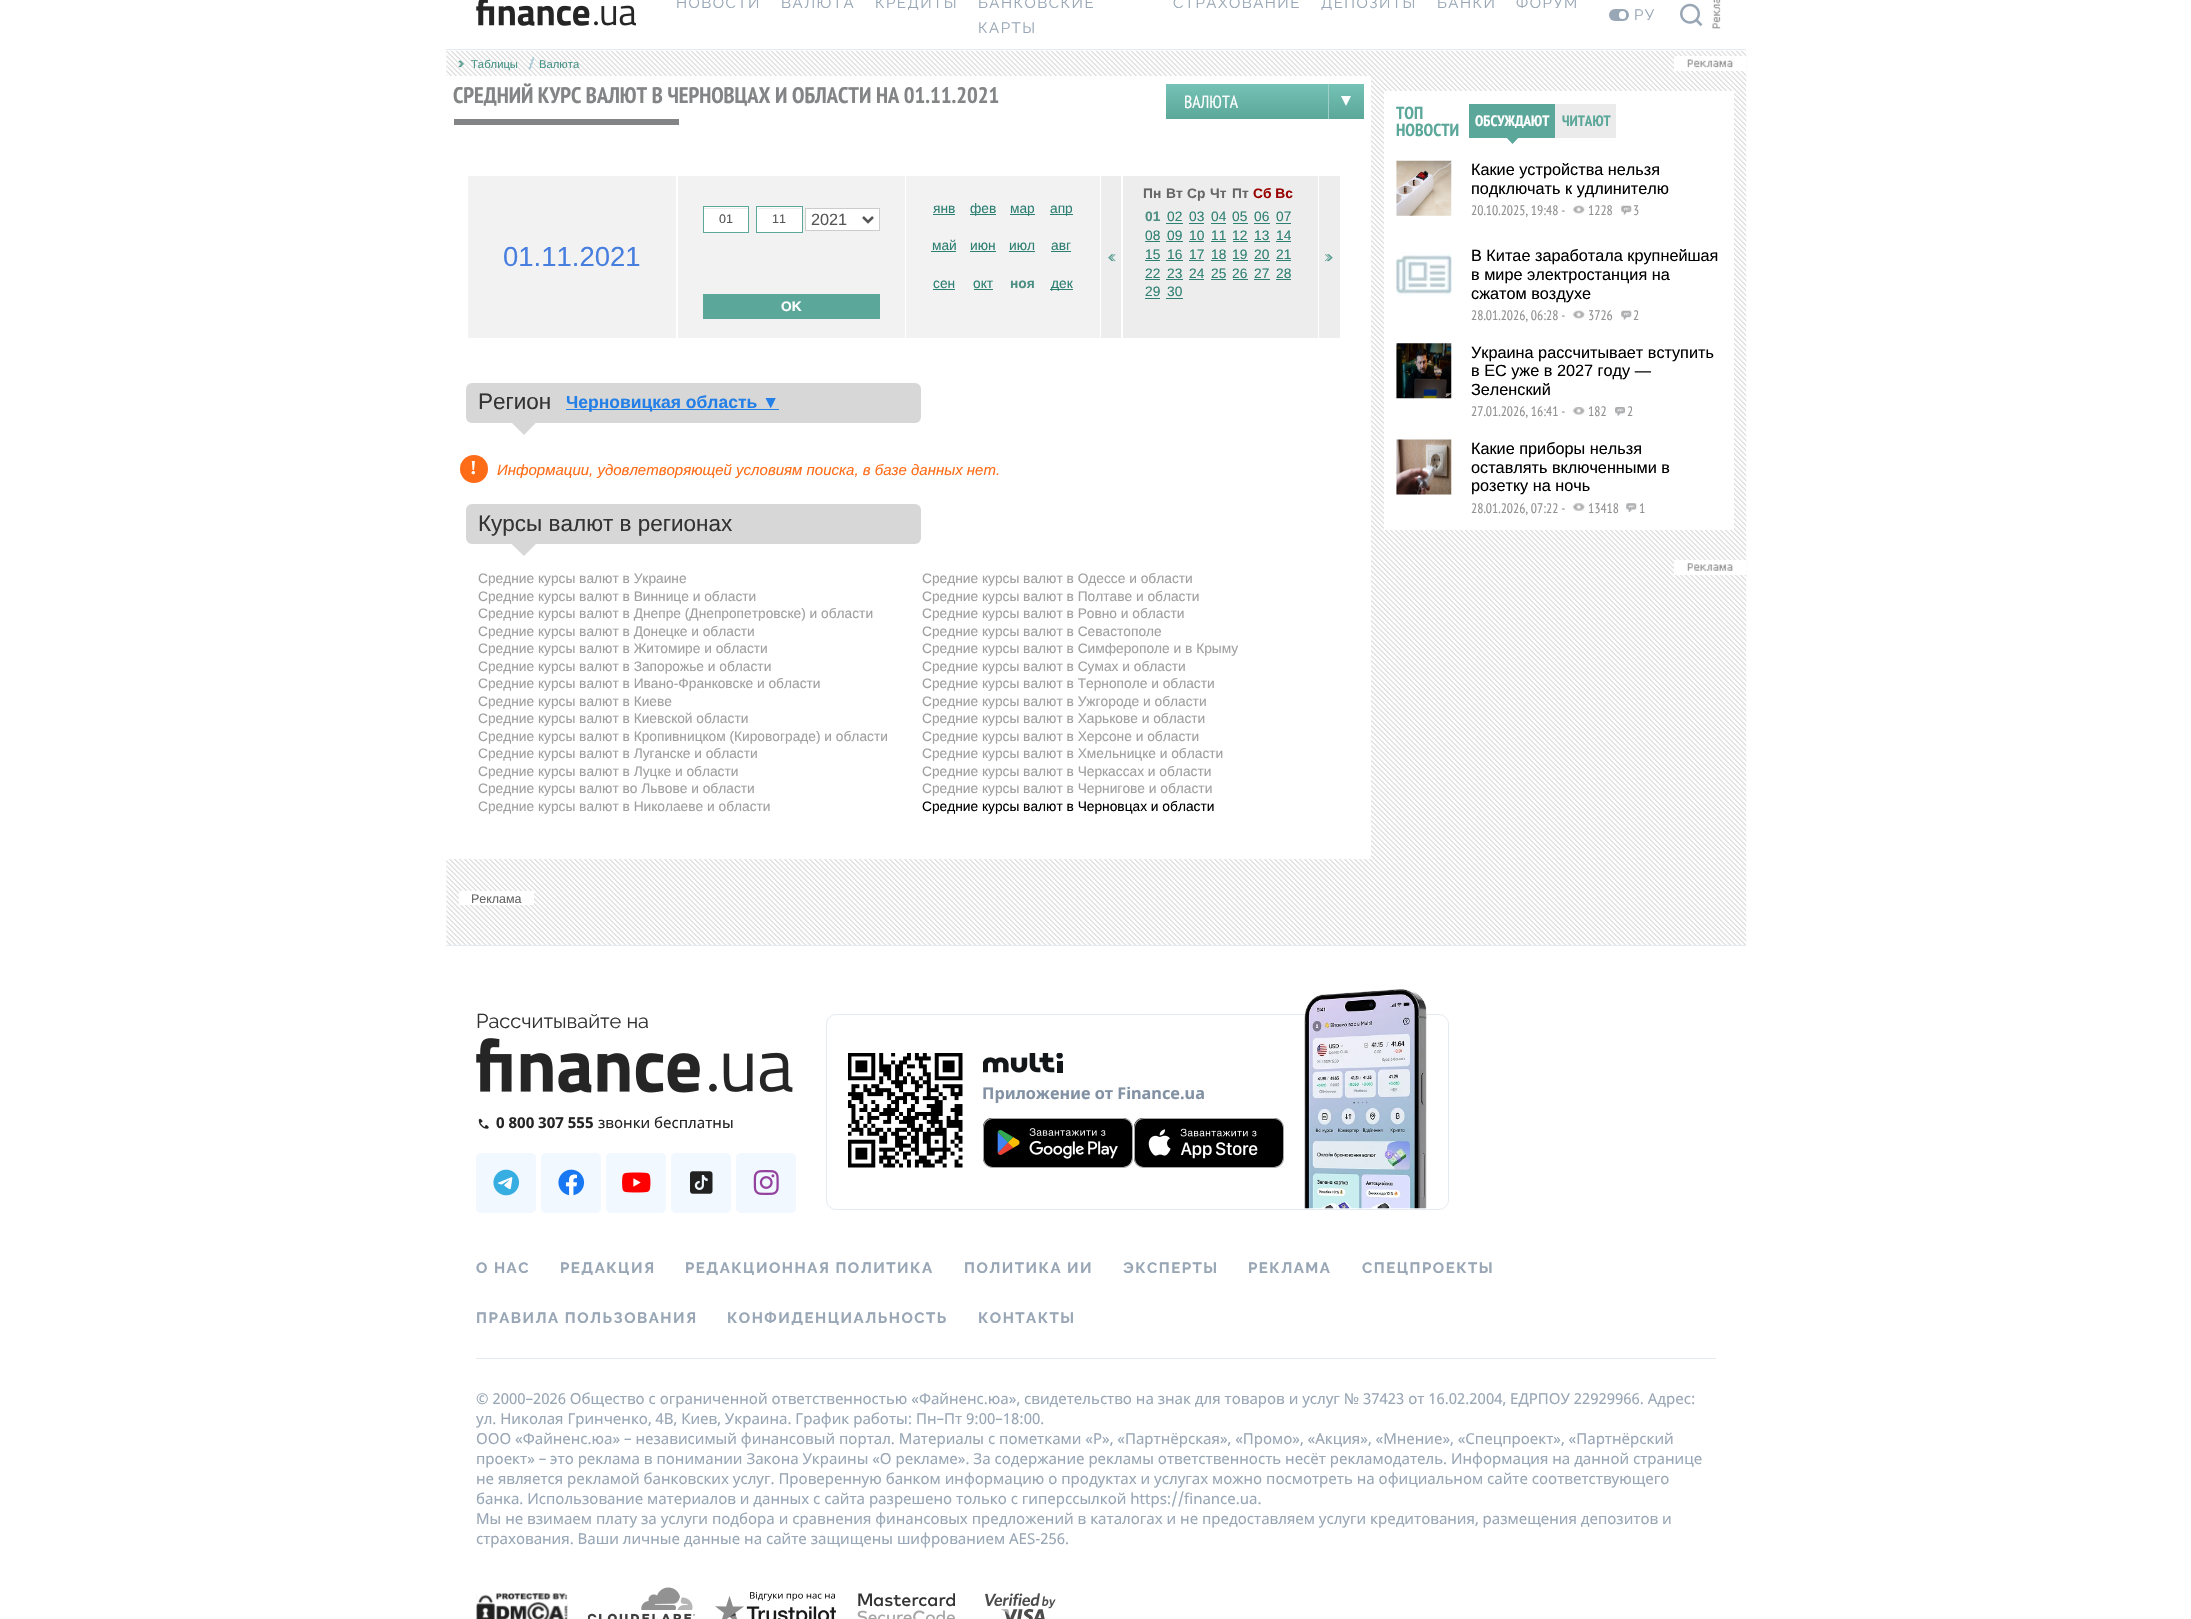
#include "include/core/SkBlurTypes.h"
#include "include/core/SkCanvas.h"
#include "include/core/SkData.h"
#include "include/core/SkFont.h"
#include "include/core/SkFontMgr.h"
#include "include/core/SkImage.h"
#include "include/core/SkMaskFilter.h"
#include "include/core/SkPaint.h"
#include "include/core/SkPathBuilder.h"
#include "include/core/SkTextBlob.h"
#include "include/effects/SkDashPathEffect.h"
#include "include/effects/SkGradientShader.h"
#include "include/utils/SkParsePath.h"

extern sk_sp<SkFontMgr> fontMgr;

static SkFont font(const char* family, int weight, float size, bool italic = false) {
    SkFontStyle style(weight, SkFontStyle::kNormal_Width,
        italic ? SkFontStyle::kItalic_Slant : SkFontStyle::kUpright_Slant);
    SkFont result(fontMgr->matchFamilyStyle(family, style), size);
    result.setSubpixel(true);
    return result;
}

static void drawLabel(SkCanvas* canvas, const char* s, float x, float y, const SkFont& font, SkColor color) {
    SkPaint ink(SkColor4f::FromColor(color));
    ink.setAntiAlias(true);
    canvas->drawString(s, x, y, font, ink);
}

static void drawTracked(SkCanvas* canvas, const char* s, float x, float y, const SkFont& font, const SkPaint& ink, float letter, float word) {
    std::vector<SkGlyphID> glyphs(font.countText(s, strlen(s), SkTextEncoding::kUTF8));
    std::vector<float> xs(glyphs.size());
    font.textToGlyphs(s, strlen(s), SkTextEncoding::kUTF8, glyphs);
    font.getXPos(glyphs, xs, x);
    float extra = 0;
    for (size_t i = 0; i < glyphs.size(); i++) {
        xs[i] += extra;
        extra += letter + word * (glyphs[i] == font.unicharToGlyph(' '));
    }
    canvas->drawTextBlob(SkTextBlob::MakeFromPosHGlyphs(glyphs, xs, y, font), 0, 0, ink);
}

static void fillRect(SkCanvas* canvas, float x, float y, float w, float h, SkColor color) {
    SkPaint ink(SkColor4f::FromColor(color));
    ink.setAntiAlias(true);
    canvas->drawRect(SkRect::MakeXYWH(x, y, w, h), ink);
}

static void fillRRect(SkCanvas* canvas, float x, float y, float w, float h, float radius, SkColor color) {
    SkPaint ink(SkColor4f::FromColor(color));
    ink.setAntiAlias(true);
    canvas->drawRoundRect(SkRect::MakeXYWH(x, y, w, h), radius, radius, ink);
}

static void drawPhoto(SkCanvas* canvas, const char* path, float x, float y, float w, float h) {
    auto image = SkImages::DeferredFromEncodedData(SkData::MakeFromFileName(path));
    canvas->drawImageRect(image, SkRect::MakeXYWH(x, y, w, h), SkSamplingOptions());
}

static SkPath parsePath(const char* data, bool evenOdd = false) {
    SkPath result = *SkParsePath::FromSVGString(data);
    if (evenOdd) result.setFillType(SkPathFillType::kEvenOdd);
    return result;
}

void draw(SkCanvas* canvas) {
    SkPaint paint;
    paint.setAntiAlias(true);
    canvas->clear(0xFFFFFFFF);
    fillRect(canvas, 446, 49, 1300, 1, 0xFFE5EAEF);
    drawPhoto(canvas, "assets/img1.png", 476, 0, 160, 26);
    SkFont font1 = font("Raleway", 400, 15);
    paint.setColor(0xFF98A6B5);
    drawTracked(canvas, "НОВОСТИ", 676, 8, font1, paint, 1.5f, 0);
    drawTracked(canvas, "ВАЛЮТА", 781, 8, font1, paint, 1.5f, 0);
    drawTracked(canvas, "КРЕДИТЫ", 875, 8, font1, paint, 1.5f, 0);
    drawTracked(canvas, "БАНКОВСКИЕ", 978, 8, font1, paint, 1.5f, 0);
    drawTracked(canvas, "КАРТЫ", 978, 33, font1, paint, 1.5f, 0);
    drawTracked(canvas, "СТРАХОВАНИЕ", 1173, 8, font1, paint, 1.5f, 0);
    drawTracked(canvas, "ДЕПОЗИТЫ", 1321, 8, font1, paint, 1.5f, 0);
    drawTracked(canvas, "БАНКИ", 1437, 8, font1, paint, 1.5f, 0);
    drawTracked(canvas, "ФОРУМ", 1516, 8, font1, paint, 1.5f, 0);
    fillRRect(canvas, 1609, 9, 20, 12, 6, 0xFF98A6B5);
    fillRRect(canvas, 1619, 11, 7, 8, 3.5f, 0xFFFFFFFF);
    drawTracked(canvas, "РУ", 1634, 20, font1, paint, 1.5f, 0);
    drawPhoto(canvas, "assets/img2.png", 1680, 3, 23, 24);
    drawPhoto(canvas, "assets/img3.png", 1712, 0, 9, 29);
    drawPhoto(canvas, "assets/img4.png", 446, 50, 1301, 896);
    drawPhoto(canvas, "assets/img5.png", 458, 60, 6, 8);
    SkFont font2 = font("Liberation Sans", 400, 11.25f);
    drawLabel(canvas, "Таблицы", 471, 68, font2, 0xFF479386);
    drawPhoto(canvas, "assets/img6.png", 528, 57, 6, 13);
    drawLabel(canvas, "Валюта", 539, 68, font2, 0xFF479386);
    fillRect(canvas, 446, 76, 925, 783, 0xFFFFFFFF);
    SkFont font3 = font("PT Sans Narrow", 700, 22.5f);
    drawLabel(canvas, "СРЕДНИЙ КУРС ВАЛЮТ В ЧЕРНОВЦАХ И ОБЛАСТИ НА 01.11.2021", 453, 103, font3, 0xFF838485);
    {
        const SkColor colors[] = {0xFF75C3B6, 0xFF5BA79A};
        const float stops[] = {0, 1};
        const SkPoint ends[] = {{1248, 84}, {1248, 119}};
        paint.setShader(SkGradientShader::MakeLinear(ends, colors, stops, 2, SkTileMode::kClamp));
        paint.setAlpha(255);
    }
    canvas->drawRect(SkRect::MakeXYWH(1166, 84, 162, 35), paint);
    SkFont font4 = font("PT Sans Narrow", 400, 17.5f);
    drawLabel(canvas, "ВАЛЮТА", 1184, 108, font4, 0xFFFFFFFF);
    {
        const SkColor colors[] = {0xFF75C3B6, 0xFF5BA79A};
        const float stops[] = {0, 1};
        const SkPoint ends[] = {{1346, 84}, {1346, 119}};
        paint.setShader(SkGradientShader::MakeLinear(ends, colors, stops, 2, SkTileMode::kClamp));
        paint.setAlpha(255);
    }
    canvas->drawRect(SkRect::MakeXYWH(1329, 84, 35, 35), paint);
    fillRect(canvas, 1328, 84, 1, 35, 0xFFA2D0C8);
    paint.setShader(nullptr);
    paint.setColor(0xFFFFFFFF);
    canvas->drawPath(parsePath("M1341 96H1351L1346 106Z"), paint);
    fillRect(canvas, 454, 119, 225, 6, 0xFF838485);
    fillRect(canvas, 468, 176, 208, 162, 0xFFF2F2F2);
    SkFont font5 = font("Liberation Sans", 400, 27.5f);
    drawLabel(canvas, "01.11.2021", 503, 266, font5, 0xFF487FDF);
    fillRect(canvas, 678, 176, 227, 162, 0xFFF2F2F2);
    fillRect(canvas, 704, 207, 44, 25, 0xFFFFFFFF);
    fillRect(canvas, 704, 208, 44, 1, 0xFFECECEC);
    paint.setStroke(true);
    paint.setStrokeWidth(1);
    paint.setColor(0xFF5BA79A);
    canvas->drawRect(SkRect::MakeXYWH(703.5f, 206.5f, 45, 26), paint);
    SkFont font6 = font("Liberation Sans", 400, 12.5f);
    drawLabel(canvas, "01", 719, 223, font6, 0xFF555555);
    fillRect(canvas, 757, 207, 45, 25, 0xFFFFFFFF);
    fillRect(canvas, 758, 208, 43, 1, 0xFFECECEC);
    canvas->drawRect(SkRect::MakeXYWH(756.5f, 206.5f, 46, 26), paint);
    drawLabel(canvas, "11", 772, 223, font6, 0xFF555555);
    paint.setStroke(false);
    paint.setColor(0xFFFFFFFF);
    canvas->drawRect(SkRect::MakeXYWH(805.5f, 208.5f, 74, 22), paint);
    paint.setStroke(true);
    paint.setColor(0xFFCCCCCC);
    canvas->drawRect(SkRect::MakeXYWH(805.5f, 208.5f, 74, 22), paint);
    paint.setStrokeWidth(2.5f);
    paint.setColor(0xFF555555);
    canvas->drawPath(parsePath("M863 217L868 222L873 217"), paint);
    SkFont font7 = font("Liberation Sans", 400, 16.25f);
    drawLabel(canvas, "2021", 811, 225, font7, 0xFF555555);
    fillRect(canvas, 703, 294, 177, 25, 0xFF5BA79A);
    SkFont font8 = font("Liberation Sans", 700, 13.75f);
    drawLabel(canvas, "OK", 781, 311, font8, 0xFFFFFFFF);
    fillRect(canvas, 906, 176, 194, 162, 0xFFF2F2F2);
    SkFont font9 = font("Liberation Sans", 400, 13.75f);
    drawLabel(canvas, "янв", 933, 213, font9, 0xFF2E8072);
    fillRect(canvas, 933, 214, 22, 1, 0xFF2E8072);
    fillRect(canvas, 970, 214, 26, 1, 0xFF2E8072);
    drawLabel(canvas, "фев", 970, 213, font9, 0xFF2E8072);
    fillRect(canvas, 1010, 214, 25, 1, 0xFF2E8072);
    drawLabel(canvas, "мар", 1010, 213, font9, 0xFF2E8072);
    fillRect(canvas, 1050, 214, 23, 1, 0xFF2E8072);
    drawLabel(canvas, "апр", 1050, 213, font9, 0xFF2E8072);
    drawLabel(canvas, "май", 932, 250, font9, 0xFF2E8072);
    fillRect(canvas, 931, 251, 25, 1, 0xFF2E8072);
    drawLabel(canvas, "июн", 970, 250, font9, 0xFF2E8072);
    fillRect(canvas, 970, 251, 26, 1, 0xFF2E8072);
    drawLabel(canvas, "июл", 1009, 250, font9, 0xFF2E8072);
    fillRect(canvas, 1009, 251, 26, 1, 0xFF2E8072);
    drawLabel(canvas, "авг", 1051, 250, font9, 0xFF2E8072);
    fillRect(canvas, 1051, 251, 20, 1, 0xFF2E8072);
    drawLabel(canvas, "сен", 933, 288, font9, 0xFF2E8072);
    fillRect(canvas, 933, 289, 22, 1, 0xFF2E8072);
    drawLabel(canvas, "окт", 973, 288, font9, 0xFF2E8072);
    fillRect(canvas, 974, 289, 19, 1, 0xFF2E8072);
    drawLabel(canvas, "ноя", 1010, 288, font8, 0xFF4E8F84);
    fillRect(canvas, 1050, 289, 23, 1, 0xFF2E8072);
    drawLabel(canvas, "дек", 1051, 288, font9, 0xFF2E8072);
    fillRect(canvas, 1101, 176, 20, 162, 0xFFEDEDED);
    drawPhoto(canvas, "assets/img7.png", 1108, 254, 8, 8);
    fillRect(canvas, 1123, 176, 195, 162, 0xFFEDEDED);
    drawLabel(canvas, "Пн", 1143, 198, font8, 0xFF666666);
    drawLabel(canvas, "Вт", 1166, 198, font8, 0xFF666666);
    drawLabel(canvas, "Ср", 1187, 198, font8, 0xFF666666);
    drawLabel(canvas, "Чт", 1210, 198, font8, 0xFF666666);
    drawLabel(canvas, "Пт", 1232, 198, font8, 0xFF666666);
    drawLabel(canvas, "Сб Вс", 1253, 198, font8, 0xFF990000);
    drawLabel(canvas, "01", 1145, 221, font8, 0xFF4E8F84);
    drawLabel(canvas, "02", 1167, 221, font9, 0xFF2E8072);
    fillRect(canvas, 1166, 223, 17, 1, 0xFF2E8072);
    drawLabel(canvas, "03", 1189, 221, font9, 0xFF2E8072);
    fillRect(canvas, 1189, 223, 15, 1, 0xFF2E8072);
    drawLabel(canvas, "04", 1211, 221, font9, 0xFF2E8072);
    fillRect(canvas, 1211, 223, 15, 1, 0xFF2E8072);
    drawLabel(canvas, "05", 1232, 221, font9, 0xFF2E8072);
    fillRect(canvas, 1233, 223, 15, 1, 0xFF2E8072);
    drawLabel(canvas, "06", 1254, 221, font9, 0xFF2E8072);
    fillRect(canvas, 1254, 223, 16, 1, 0xFF2E8072);
    drawLabel(canvas, "07", 1276, 221, font9, 0xFF2E8072);
    fillRect(canvas, 1276, 223, 15, 1, 0xFF2E8072);
    drawLabel(canvas, "08", 1145, 240, font9, 0xFF2E8072);
    fillRect(canvas, 1145, 241, 15, 1, 0xFF2E8072);
    drawLabel(canvas, "09", 1167, 240, font9, 0xFF2E8072);
    fillRect(canvas, 1166, 241, 17, 1, 0xFF2E8072);
    drawLabel(canvas, "10", 1189, 240, font9, 0xFF2E8072);
    fillRect(canvas, 1189, 241, 15, 1, 0xFF2E8072);
    drawLabel(canvas, "11", 1211, 240, font9, 0xFF2E8072);
    fillRect(canvas, 1211, 241, 15, 1, 0xFF2E8072);
    drawLabel(canvas, "12", 1232, 240, font9, 0xFF2E8072);
    fillRect(canvas, 1233, 241, 15, 1, 0xFF2E8072);
    drawLabel(canvas, "13", 1254, 240, font9, 0xFF2E8072);
    fillRect(canvas, 1254, 241, 16, 1, 0xFF2E8072);
    drawLabel(canvas, "14", 1276, 240, font9, 0xFF2E8072);
    fillRect(canvas, 1276, 241, 15, 1, 0xFF2E8072);
    drawLabel(canvas, "15", 1145, 259, font9, 0xFF2E8072);
    fillRect(canvas, 1145, 260, 15, 1, 0xFF2E8072);
    drawLabel(canvas, "16", 1167, 259, font9, 0xFF2E8072);
    fillRect(canvas, 1166, 260, 17, 1, 0xFF2E8072);
    drawLabel(canvas, "17", 1189, 259, font9, 0xFF2E8072);
    fillRect(canvas, 1189, 260, 15, 1, 0xFF2E8072);
    drawLabel(canvas, "18", 1211, 259, font9, 0xFF2E8072);
    fillRect(canvas, 1211, 260, 15, 1, 0xFF2E8072);
    drawLabel(canvas, "19", 1232, 259, font9, 0xFF2E8072);
    fillRect(canvas, 1233, 260, 15, 1, 0xFF2E8072);
    drawLabel(canvas, "20", 1254, 259, font9, 0xFF2E8072);
    fillRect(canvas, 1254, 260, 16, 1, 0xFF2E8072);
    drawLabel(canvas, "21", 1276, 259, font9, 0xFF2E8072);
    fillRect(canvas, 1276, 260, 15, 1, 0xFF2E8072);
    drawLabel(canvas, "22", 1145, 278, font9, 0xFF2E8072);
    fillRect(canvas, 1145, 279, 15, 1, 0xFF2E8072);
    drawLabel(canvas, "23", 1167, 278, font9, 0xFF2E8072);
    fillRect(canvas, 1166, 279, 17, 1, 0xFF2E8072);
    drawLabel(canvas, "24", 1189, 278, font9, 0xFF2E8072);
    fillRect(canvas, 1189, 279, 15, 1, 0xFF2E8072);
    drawLabel(canvas, "25", 1211, 278, font9, 0xFF2E8072);
    fillRect(canvas, 1211, 279, 15, 1, 0xFF2E8072);
    drawLabel(canvas, "26", 1232, 278, font9, 0xFF2E8072);
    fillRect(canvas, 1233, 279, 15, 1, 0xFF2E8072);
    drawLabel(canvas, "27", 1254, 278, font9, 0xFF2E8072);
    fillRect(canvas, 1254, 279, 16, 1, 0xFF2E8072);
    drawLabel(canvas, "28", 1276, 278, font9, 0xFF2E8072);
    fillRect(canvas, 1276, 279, 15, 1, 0xFF2E8072);
    drawLabel(canvas, "29", 1145, 296, font9, 0xFF2E8072);
    fillRect(canvas, 1145, 298, 15, 1, 0xFF2E8072);
    drawLabel(canvas, "30", 1167, 296, font9, 0xFF2E8072);
    fillRect(canvas, 1166, 298, 17, 1, 0xFF2E8072);
    fillRect(canvas, 1319, 176, 21, 162, 0xFFEDEDED);
    drawPhoto(canvas, "assets/img8.png", 1325, 254, 8, 8);
    fillRRect(canvas, 466, 383, 455, 40, 6, 0xFFD7D7D7);
    SkFont font10 = font("Liberation Sans", 400, 22.5f);
    drawLabel(canvas, "Регион", 478, 409, font10, 0xFF333333);
    fillRect(canvas, 566, 409, 190, 1, 0xFF247FE6);
    SkFont font11 = font("Liberation Sans", 700, 17.5f);
    drawLabel(canvas, "Черновицкая область ▼", 566, 408, font11, 0xFF247FE6);
    fillRect(canvas, 756, 409, 23, 1, 0xFF247FE6);
    paint.setStroke(false);
    paint.setColor(0xFFD7D7D7);
    canvas->drawPath(parsePath("M510 421H537.5L524 435Z"), paint);
    paint.setColor(0xFFFF6C17);
    canvas->drawCircle(474, 469, 14, paint);
    SkFont font12 = font("Liberation Serif", 700, 20);
    drawLabel(canvas, "!", 470, 474, font12, 0xFFFFFFFF);
    SkFont font13 = font("Liberation Sans", 400, 15, true);
    drawLabel(canvas, "Информации, удовлетворяющей условиям поиска, в базе данных нет.", 497, 475, font13, 0xFFFF6C17);
    fillRRect(canvas, 466, 504, 455, 40, 6, 0xFFD7D7D7);
    drawLabel(canvas, "Курсы валют в регионах", 478, 531, font10, 0xFF333333);
    paint.setColor(0xFFD7D7D7);
    canvas->drawPath(parsePath("M510 542.5H537.5L524 556Z"), paint);
    drawLabel(canvas, "Средние курсы валют в Украине", 478, 583, font9, 0xFFA0A0A0);
    drawLabel(canvas, "Средние курсы валют в Одессе и области", 922, 583, font9, 0xFFA0A0A0);
    drawLabel(canvas, "Средние курсы валют в Виннице и области", 478, 601, font9, 0xFFA0A0A0);
    drawLabel(canvas, "Средние курсы валют в Полтаве и области", 922, 601, font9, 0xFFA0A0A0);
    drawLabel(canvas, "Средние курсы валют в Днепре (Днепропетровске) и области", 478, 618, font9, 0xFFA0A0A0);
    drawLabel(canvas, "Средние курсы валют в Ровно и области", 922, 618, font9, 0xFFA0A0A0);
    drawLabel(canvas, "Средние курсы валют в Донецке и области", 478, 636, font9, 0xFFA0A0A0);
    drawLabel(canvas, "Средние курсы валют в Севастополе", 922, 636, font9, 0xFFA0A0A0);
    drawLabel(canvas, "Средние курсы валют в Житомире и области", 478, 653, font9, 0xFFA0A0A0);
    drawLabel(canvas, "Средние курсы валют в Симферополе и в Крыму", 922, 653, font9, 0xFFA0A0A0);
    drawLabel(canvas, "Средние курсы валют в Запорожье и области", 478, 671, font9, 0xFFA0A0A0);
    drawLabel(canvas, "Средние курсы валют в Сумах и области", 922, 671, font9, 0xFFA0A0A0);
    drawLabel(canvas, "Средние курсы валют в Ивано-Франковске и области", 478, 688, font9, 0xFFA0A0A0);
    drawLabel(canvas, "Средние курсы валют в Тернополе и области", 922, 688, font9, 0xFFA0A0A0);
    drawLabel(canvas, "Средние курсы валют в Киеве", 478, 706, font9, 0xFFA0A0A0);
    drawLabel(canvas, "Средние курсы валют в Ужгороде и области", 922, 706, font9, 0xFFA0A0A0);
    drawLabel(canvas, "Средние курсы валют в Киевской области", 478, 723, font9, 0xFFA0A0A0);
    drawLabel(canvas, "Средние курсы валют в Харькове и области", 922, 723, font9, 0xFFA0A0A0);
    drawLabel(canvas, "Средние курсы валют в Кропивницком (Кировограде) и области", 478, 741, font9, 0xFFA0A0A0);
    drawLabel(canvas, "Средние курсы валют в Херсоне и области", 922, 741, font9, 0xFFA0A0A0);
    drawLabel(canvas, "Средние курсы валют в Луганске и области", 478, 758, font9, 0xFFA0A0A0);
    drawLabel(canvas, "Средние курсы валют в Хмельницке и области", 922, 758, font9, 0xFFA0A0A0);
    drawLabel(canvas, "Средние курсы валют в Луцке и области", 478, 776, font9, 0xFFA0A0A0);
    drawLabel(canvas, "Средние курсы валют в Черкассах и области", 922, 776, font9, 0xFFA0A0A0);
    drawLabel(canvas, "Средние курсы валют во Львове и области", 478, 793, font9, 0xFFA0A0A0);
    drawLabel(canvas, "Средние курсы валют в Чернигове и области", 922, 793, font9, 0xFFA0A0A0);
    drawLabel(canvas, "Средние курсы валют в Николаеве и области", 478, 811, font9, 0xFFA0A0A0);
    drawLabel(canvas, "Средние курсы валют в Черновцах и области", 922, 811, font9, 0xFF000000);
    fillRect(canvas, 1674, 56, 72, 15, 0xFFFFFFFF);
    drawPhoto(canvas, "assets/img9.png", 1687, 59, 46, 9);
    fillRect(canvas, 1384, 91, 350, 439, 0xFFFFFFFF);
    SkFont font14 = font("PT Sans Narrow", 700, 17.5f);
    drawLabel(canvas, "ТОП", 1396, 119, font14, 0xFF5BA79A);
    drawLabel(canvas, "НОВОСТИ", 1396, 136, font14, 0xFF5BA79A);
    fillRect(canvas, 1469, 104, 86, 34, 0xFF5BA79A);
    SkFont font15 = font("PT Sans Narrow", 700, 15);
    drawLabel(canvas, "ОБСУЖДАЮТ", 1475, 126, font15, 0xFFFFFFFF);
    paint.setColor(0xFF5BA79A);
    canvas->drawPath(parsePath("M1505 136H1520L1512.5 144Z"), paint);
    fillRect(canvas, 1555, 104, 61, 34, 0xFFEBEBEB);
    drawLabel(canvas, "ЧИТАЮТ", 1562, 126, font15, 0xFF5BA79A);
    drawPhoto(canvas, "assets/img10.png", 1396, 160, 56, 56);
    drawLabel(canvas, "Какие устройства нельзя", 1471, 175, font7, 0xFF000000);
    drawLabel(canvas, "подключать к удлинителю", 1471, 194, font7, 0xFF000000);
    SkFont font16 = font("PT Sans Narrow", 400, 13.75f);
    drawLabel(canvas, "20.10.2025, 19:48 -", 1471, 215, font16, 0xFF909090);
    drawPhoto(canvas, "assets/img11.png", 1572, 205, 13, 9);
    drawLabel(canvas, "1228", 1588, 215, font16, 0xFF909090);
    drawPhoto(canvas, "assets/img12.png", 1621, 205, 11, 10);
    drawLabel(canvas, "3", 1633, 215, font16, 0xFF909090);
    drawPhoto(canvas, "assets/img13.png", 1396, 252, 56, 45);
    drawLabel(canvas, "В Китае заработала крупнейшая", 1471, 261, font7, 0xFF000000);
    drawLabel(canvas, "в мире электростанция на", 1471, 280, font7, 0xFF000000);
    drawLabel(canvas, "сжатом воздухе", 1471, 299, font7, 0xFF000000);
    drawLabel(canvas, "28.01.2026, 06:28 -", 1471, 320, font16, 0xFF909090);
    drawPhoto(canvas, "assets/img11.png", 1572, 310, 13, 9);
    drawLabel(canvas, "3726", 1588, 320, font16, 0xFF909090);
    drawPhoto(canvas, "assets/img12.png", 1621, 310, 11, 10);
    drawLabel(canvas, "2", 1633, 320, font16, 0xFF909090);
    drawPhoto(canvas, "assets/img14.png", 1396, 343, 56, 56);
    drawLabel(canvas, "Украина рассчитывает вступить", 1471, 358, font7, 0xFF000000);
    drawLabel(canvas, "в ЕС уже в 2027 году —", 1471, 376, font7, 0xFF000000);
    drawLabel(canvas, "Зеленский", 1471, 395, font7, 0xFF000000);
    drawLabel(canvas, "27.01.2026, 16:41 -", 1471, 416, font16, 0xFF909090);
    drawPhoto(canvas, "assets/img15.png", 1572, 407, 13, 8);
    drawLabel(canvas, "182", 1588, 416, font16, 0xFF909090);
    drawPhoto(canvas, "assets/img16.png", 1615, 407, 10, 9);
    drawLabel(canvas, "2", 1627, 416, font16, 0xFF909090);
    drawPhoto(canvas, "assets/img17.png", 1396, 439, 56, 56);
    drawLabel(canvas, "Какие приборы нельзя", 1471, 454, font7, 0xFF000000);
    drawLabel(canvas, "оставлять включенными в", 1471, 473, font7, 0xFF000000);
    drawLabel(canvas, "розетку на ночь", 1471, 491, font7, 0xFF000000);
    drawLabel(canvas, "28.01.2026, 07:22 -", 1471, 513, font16, 0xFF909090);
    drawPhoto(canvas, "assets/img18.png", 1572, 503, 13, 8);
    drawLabel(canvas, "13418", 1588, 513, font16, 0xFF909090);
    drawPhoto(canvas, "assets/img19.png", 1626, 503, 11, 9);
    drawLabel(canvas, "1", 1639, 513, font16, 0xFF909090);
    fillRect(canvas, 1674, 560, 72, 15, 0xFFFFFFFF);
    drawPhoto(canvas, "assets/img20.png", 1687, 563, 46, 8);
    fillRect(canvas, 459, 891, 75, 14, 0xFFFFFFFF);
    drawLabel(canvas, "Реклама", 471, 903, font6, 0xFF666666);
    paint.setColor(0xFFE5EAEF);
    canvas->drawPath(parsePath("M446 945V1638V946H1746V945Z"), paint);
    SkFont font17 = font("Raleway", 400, 20);
    drawLabel(canvas, "Рассчитывайте на", 476, 1028, font17, 0xFF333333);
    drawPhoto(canvas, "assets/img21.png", 476, 1038, 317, 55);
    drawPhoto(canvas, "assets/img22.png", 478, 1118, 11, 11);
    SkFont font18 = font("Noto Sans", 700, 15);
    drawLabel(canvas, "0 800 307 555", 496, 1128, font18, 0xFF252525);
    SkFont font19 = font("Noto Sans", 400, 15);
    drawLabel(canvas, "звонки бесплатны", 598, 1128, font19, 0xFF252525);
    fillRRect(canvas, 476, 1153, 60, 60, 5, 0xFFF1F8FF);
    drawPhoto(canvas, "assets/img23.png", 493, 1169, 27, 27);
    fillRRect(canvas, 541, 1153, 60, 60, 5, 0xFFF1F8FF);
    drawPhoto(canvas, "assets/img24.png", 558, 1169, 27, 27);
    fillRRect(canvas, 606, 1153, 60, 60, 5, 0xFFF1F8FF);
    drawPhoto(canvas, "assets/img25.png", 622, 1172, 29, 21);
    fillRRect(canvas, 671, 1153, 60, 60, 5, 0xFFF1F8FF);
    drawPhoto(canvas, "assets/img26.png", 690, 1171, 23, 23);
    fillRRect(canvas, 736, 1153, 60, 60, 5, 0xFFF1F8FF);
    drawPhoto(canvas, "assets/img27.png", 753, 1170, 26, 25);
    paint.setStroke(true);
    paint.setStrokeWidth(1);
    canvas->drawRoundRect(SkRect::MakeXYWH(826.5f, 1014.5f, 622, 195), 9.5f, 9.5f, paint);
    drawPhoto(canvas, "assets/img28.png", 848, 1053, 115, 115);
    drawPhoto(canvas, "assets/img29.png", 983, 1053, 80, 20);
    SkFont font20 = font("Noto Sans", 700, 16.25f);
    drawLabel(canvas, "Приложение от Finance.ua", 982, 1099, font20, 0xFF8292A4);
    drawPhoto(canvas, "assets/img30.png", 983, 1118, 150, 50);
    drawPhoto(canvas, "assets/img31.png", 1134, 1118, 150, 50);
    drawPhoto(canvas, "assets/img32.png", 1304, 989, 123, 220);
    SkFont font21 = font("Raleway", 700, 15);
    paint.setStroke(false);
    paint.setColor(0xFF98A6B5);
    drawTracked(canvas, "О НАС", 476, 1273, font21, paint, 1.5f, 0);
    drawTracked(canvas, "РЕДАКЦИЯ", 560, 1273, font21, paint, 1.5f, 0);
    drawTracked(canvas, "РЕДАКЦИОННАЯ ПОЛИТИКА", 685, 1273, font21, paint, 1.5f, 0);
    drawTracked(canvas, "ПОЛИТИКА ИИ", 964, 1273, font21, paint, 1.5f, 0);
    drawTracked(canvas, "ЭКСПЕРТЫ", 1123, 1273, font21, paint, 1.5f, 0);
    drawTracked(canvas, "РЕКЛАМА", 1248, 1273, font21, paint, 1.5f, 0);
    drawTracked(canvas, "СПЕЦПРОЕКТЫ", 1362, 1273, font21, paint, 1.5f, 0);
    drawTracked(canvas, "ПРАВИЛА ПОЛЬЗОВАНИЯ", 476, 1323, font21, paint, 1.5f, 0);
    drawTracked(canvas, "КОНФИДЕНЦИАЛЬНОСТЬ", 727, 1323, font21, paint, 1.5f, 0);
    drawTracked(canvas, "КОНТАКТЫ", 978, 1323, font21, paint, 1.5f, 0);
    fillRect(canvas, 476, 1358, 1240, 1, 0xFFE5EAEF);
    drawLabel(canvas, "© 2000–2026 Общество с ограниченной ответственностью «Файненс.юа», свидетельство на знак для товаров и услуг № 37423 от 16.02.2004, ЕДРПОУ 22929966. Адрес:", 476, 1404, font19, 0xFF98A6B5);
    drawLabel(canvas, "ул. Николая Гринченко, 4В, Киев, Украина. График работы: Пн–Пт 9:00–18:00.", 476, 1424, font19, 0xFF98A6B5);
    drawLabel(canvas, "ООО «Файненс.юа» – независимый финансовый портал. Материалы с пометками «Р», «Партнёрская», «Промо», «Акция», «Мнение», «Спецпроект», «Партнёрский", 476, 1444, font19, 0xFF98A6B5);
    drawLabel(canvas, "проект» – это реклама в понимании Закона Украины «О рекламе». За содержание рекламы ответственность несёт рекламодатель. Информация на данной странице", 476, 1464, font19, 0xFF98A6B5);
    drawLabel(canvas, "не является рекламой банковских услуг. Проверенную банком информацию о продуктах и услугах можно посмотреть на официальном сайте соответствующего", 476, 1484, font19, 0xFF98A6B5);
    drawLabel(canvas, "банка. Использование материалов и данных с сайта разрешено только с гиперссылкой https://finance.ua.", 476, 1504, font19, 0xFF98A6B5);
    drawLabel(canvas, "Мы не взимаем плату за услуги подбора и сравнения финансовых предложений в каталогах и не предоставляем услуги кредитования, размещения депозитов и", 476, 1524, font19, 0xFF98A6B5);
    drawLabel(canvas, "страхования. Ваши личные данные на сайте защищены шифрованием AES-256.", 476, 1544, font19, 0xFF98A6B5);
    drawPhoto(canvas, "assets/img33.png", 476, 1593, 92, 26);
    drawPhoto(canvas, "assets/img34.png", 588, 1587, 107, 32);
    drawPhoto(canvas, "assets/img35.png", 715, 1592, 121, 27);
    drawPhoto(canvas, "assets/img36.png", 857, 1593, 199, 26);
}
